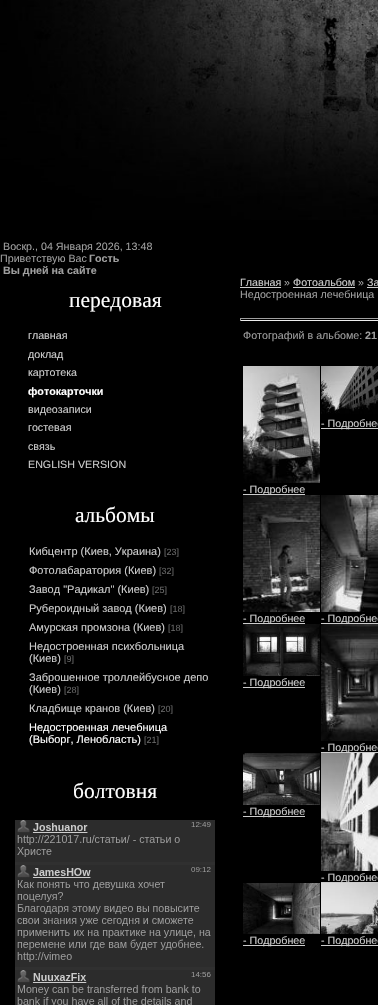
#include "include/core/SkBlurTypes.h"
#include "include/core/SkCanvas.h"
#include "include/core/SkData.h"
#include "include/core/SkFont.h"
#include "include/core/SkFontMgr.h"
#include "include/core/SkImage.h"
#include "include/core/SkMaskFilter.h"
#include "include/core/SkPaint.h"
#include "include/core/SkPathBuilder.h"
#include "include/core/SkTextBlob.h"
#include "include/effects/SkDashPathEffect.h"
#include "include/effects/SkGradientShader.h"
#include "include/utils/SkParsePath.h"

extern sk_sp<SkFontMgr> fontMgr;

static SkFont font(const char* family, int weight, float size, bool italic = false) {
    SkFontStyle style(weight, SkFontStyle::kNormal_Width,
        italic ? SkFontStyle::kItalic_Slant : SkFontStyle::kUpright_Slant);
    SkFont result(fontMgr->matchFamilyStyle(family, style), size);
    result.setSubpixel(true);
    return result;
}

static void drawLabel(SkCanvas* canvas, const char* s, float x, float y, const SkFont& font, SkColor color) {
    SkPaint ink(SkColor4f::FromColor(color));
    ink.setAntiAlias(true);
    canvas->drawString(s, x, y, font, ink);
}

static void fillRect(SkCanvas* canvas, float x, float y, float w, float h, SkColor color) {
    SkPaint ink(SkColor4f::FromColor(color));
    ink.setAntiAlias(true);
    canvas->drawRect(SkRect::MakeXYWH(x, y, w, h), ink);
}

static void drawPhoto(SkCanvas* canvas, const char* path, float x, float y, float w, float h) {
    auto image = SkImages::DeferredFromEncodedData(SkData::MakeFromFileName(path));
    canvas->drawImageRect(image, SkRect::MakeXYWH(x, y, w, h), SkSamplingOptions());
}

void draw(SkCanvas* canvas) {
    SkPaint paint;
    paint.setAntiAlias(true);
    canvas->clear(0xFF000000);
    drawPhoto(canvas, "assets/img1.png", 0, 0, 378, 220);
    SkFont font1 = font("Liberation Sans", 400, 10.7f);
    drawLabel(canvas, "Воскр., 04 Января 2026, 13:48", 3, 250, font1, 0xFF9F9F9F);
    drawLabel(canvas, "Приветствую Вас", 0, 262, font1, 0xFF9F9F9F);
    SkFont font2 = font("Liberation Sans", 700, 10.7f);
    drawLabel(canvas, "Гость", 89, 262, font2, 0xFF9F9F9F);
    drawLabel(canvas, "Вы дней на сайте", 3, 274, font2, 0xFF9F9F9F);
    SkFont font3 = font("Liberation Serif", 400, 21.5f);
    drawLabel(canvas, "передовая", 69, 307, font3, 0xFFFFFFFF);
    drawLabel(canvas, "главная", 28, 339, font1, 0xFFCCCCCC);
    drawLabel(canvas, "доклад", 28, 358, font1, 0xFFCCCCCC);
    drawLabel(canvas, "картотека", 28, 376, font1, 0xFFCCCCCC);
    drawLabel(canvas, "фотокарточки", 28, 395, font2, 0xFFFFFFFF);
    drawLabel(canvas, "видеозаписи", 28, 413, font1, 0xFFCCCCCC);
    drawLabel(canvas, "гостевая", 28, 431, font1, 0xFFCCCCCC);
    drawLabel(canvas, "связь", 28, 450, font1, 0xFFCCCCCC);
    drawLabel(canvas, "ENGLISH VERSION", 28, 468, font1, 0xFFCCCCCC);
    drawLabel(canvas, "альбомы", 75, 522, font3, 0xFFFFFFFF);
    SkFont font4 = font("Liberation Sans", 400, 11);
    drawLabel(canvas, "Кибцентр (Киев, Украина)", 29, 555, font4, 0xFFCCCCCC);
    SkFont font5 = font("Liberation Sans", 400, 9);
    drawLabel(canvas, "[23]", 164, 555, font5, 0xFF696969);
    drawLabel(canvas, "Фотолабаратория (Киев)", 29, 574, font4, 0xFFCCCCCC);
    drawLabel(canvas, "[32]", 159, 574, font5, 0xFF696969);
    drawLabel(canvas, "Завод \"Радикал\" (Киев)", 29, 593, font4, 0xFFCCCCCC);
    drawLabel(canvas, "[25]", 152, 593, font5, 0xFF696969);
    drawLabel(canvas, "Рубероидный завод (Киев)", 29, 612, font4, 0xFFCCCCCC);
    drawLabel(canvas, "[18]", 170, 612, font5, 0xFF696969);
    drawLabel(canvas, "Амурская промзона (Киев)", 29, 631, font4, 0xFFCCCCCC);
    drawLabel(canvas, "[18]", 168, 631, font5, 0xFF696969);
    drawLabel(canvas, "Недостроенная психбольница", 29, 650, font4, 0xFFCCCCCC);
    drawLabel(canvas, "(Киев)", 29, 662, font4, 0xFFCCCCCC);
    drawLabel(canvas, "[9]", 64, 662, font5, 0xFF696969);
    drawLabel(canvas, "Заброшенное троллейбусное депо", 29, 681, font4, 0xFFCCCCCC);
    drawLabel(canvas, "(Киев)", 29, 693, font4, 0xFFCCCCCC);
    drawLabel(canvas, "[28]", 64, 693, font5, 0xFF696969);
    drawLabel(canvas, "Кладбище кранов (Киев)", 29, 712, font4, 0xFFCCCCCC);
    drawLabel(canvas, "[20]", 158, 712, font5, 0xFF696969);
    drawLabel(canvas, "Недостроенная лечебница", 29, 731, font4, 0xFFFFFFFF);
    drawLabel(canvas, "(Выборг, Ленобласть)", 29, 743, font4, 0xFFFFFFFF);
    drawLabel(canvas, "[21]", 144, 743, font5, 0xFF696969);
    drawLabel(canvas, "болтовня", 73, 798, font3, 0xFFFFFFFF);
    drawPhoto(canvas, "assets/img2.png", 15, 820, 200, 185);
    drawLabel(canvas, "Главная", 240, 286, font1, 0xFFCCCCCC);
    fillRect(canvas, 240, 287, 41, 1, 0xFFCCCCCC);
    drawLabel(canvas, "»", 284, 286, font1, 0xFF9F9F9F);
    drawLabel(canvas, "Фотоальбом", 293, 286, font1, 0xFFCCCCCC);
    fillRect(canvas, 293, 287, 62, 1, 0xFFCCCCCC);
    drawLabel(canvas, "»", 358, 286, font1, 0xFF9F9F9F);
    drawLabel(canvas, "За", 367, 286, font1, 0xFFCCCCCC);
    fillRect(canvas, 367, 287, 11, 1, 0xFFCCCCCC);
    drawLabel(canvas, "Недостроенная лечебница", 240, 298, font1, 0xFF9F9F9F);
    fillRect(canvas, 240, 318, 138, 1, 0xFF9F9F9F);
    fillRect(canvas, 240, 320, 138, 1, 0xFFEEEEEE);
    fillRect(canvas, 240, 318, 1, 3, 0xFF9F9F9F);
    drawLabel(canvas, "Фотографий в альбоме:", 243, 339, font1, 0xFF9F9F9F);
    drawLabel(canvas, "21", 365, 339, font2, 0xFF9F9F9F);
    drawPhoto(canvas, "assets/img3.png", 321, 366, 57, 48);
    fillRect(canvas, 321, 428, 57, 1, 0xFFCCCCCC);
    drawLabel(canvas, "- Подробнее", 321, 427, font1, 0xFFCCCCCC);
    drawPhoto(canvas, "assets/img4.png", 243, 366, 77, 117);
    fillRect(canvas, 243, 494, 62, 1, 0xFFCCCCCC);
    drawLabel(canvas, "- Подробнее", 243, 493, font1, 0xFFCCCCCC);
    drawPhoto(canvas, "assets/img5.png", 243, 495, 77, 117);
    fillRect(canvas, 243, 623, 62, 1, 0xFFCCCCCC);
    drawLabel(canvas, "- Подробнее", 243, 622, font1, 0xFFCCCCCC);
    drawPhoto(canvas, "assets/img6.png", 321, 495, 57, 117);
    fillRect(canvas, 321, 623, 57, 1, 0xFFCCCCCC);
    drawLabel(canvas, "- Подробнее", 321, 622, font1, 0xFFCCCCCC);
    drawPhoto(canvas, "assets/img7.png", 243, 624, 77, 52);
    fillRect(canvas, 243, 687, 62, 1, 0xFFCCCCCC);
    drawLabel(canvas, "- Подробнее", 243, 686, font1, 0xFFCCCCCC);
    drawPhoto(canvas, "assets/img8.png", 321, 624, 57, 117);
    fillRect(canvas, 321, 752, 57, 1, 0xFFCCCCCC);
    drawLabel(canvas, "- Подробнее", 321, 751, font1, 0xFFCCCCCC);
    drawPhoto(canvas, "assets/img9.png", 243, 753, 77, 52);
    fillRect(canvas, 243, 816, 62, 1, 0xFFCCCCCC);
    drawLabel(canvas, "- Подробнее", 243, 815, font1, 0xFFCCCCCC);
    drawPhoto(canvas, "assets/img10.png", 321, 753, 57, 118);
    fillRect(canvas, 321, 882, 57, 1, 0xFFCCCCCC);
    drawLabel(canvas, "- Подробнее", 321, 881, font1, 0xFFCCCCCC);
    drawPhoto(canvas, "assets/img11.png", 243, 883, 77, 51);
    fillRect(canvas, 243, 945, 62, 1, 0xFFCCCCCC);
    drawLabel(canvas, "- Подробнее", 243, 944, font1, 0xFFCCCCCC);
    drawPhoto(canvas, "assets/img12.png", 321, 883, 57, 51);
    fillRect(canvas, 321, 945, 57, 1, 0xFFCCCCCC);
    drawLabel(canvas, "- Подробнее", 321, 944, font1, 0xFFCCCCCC);
}
